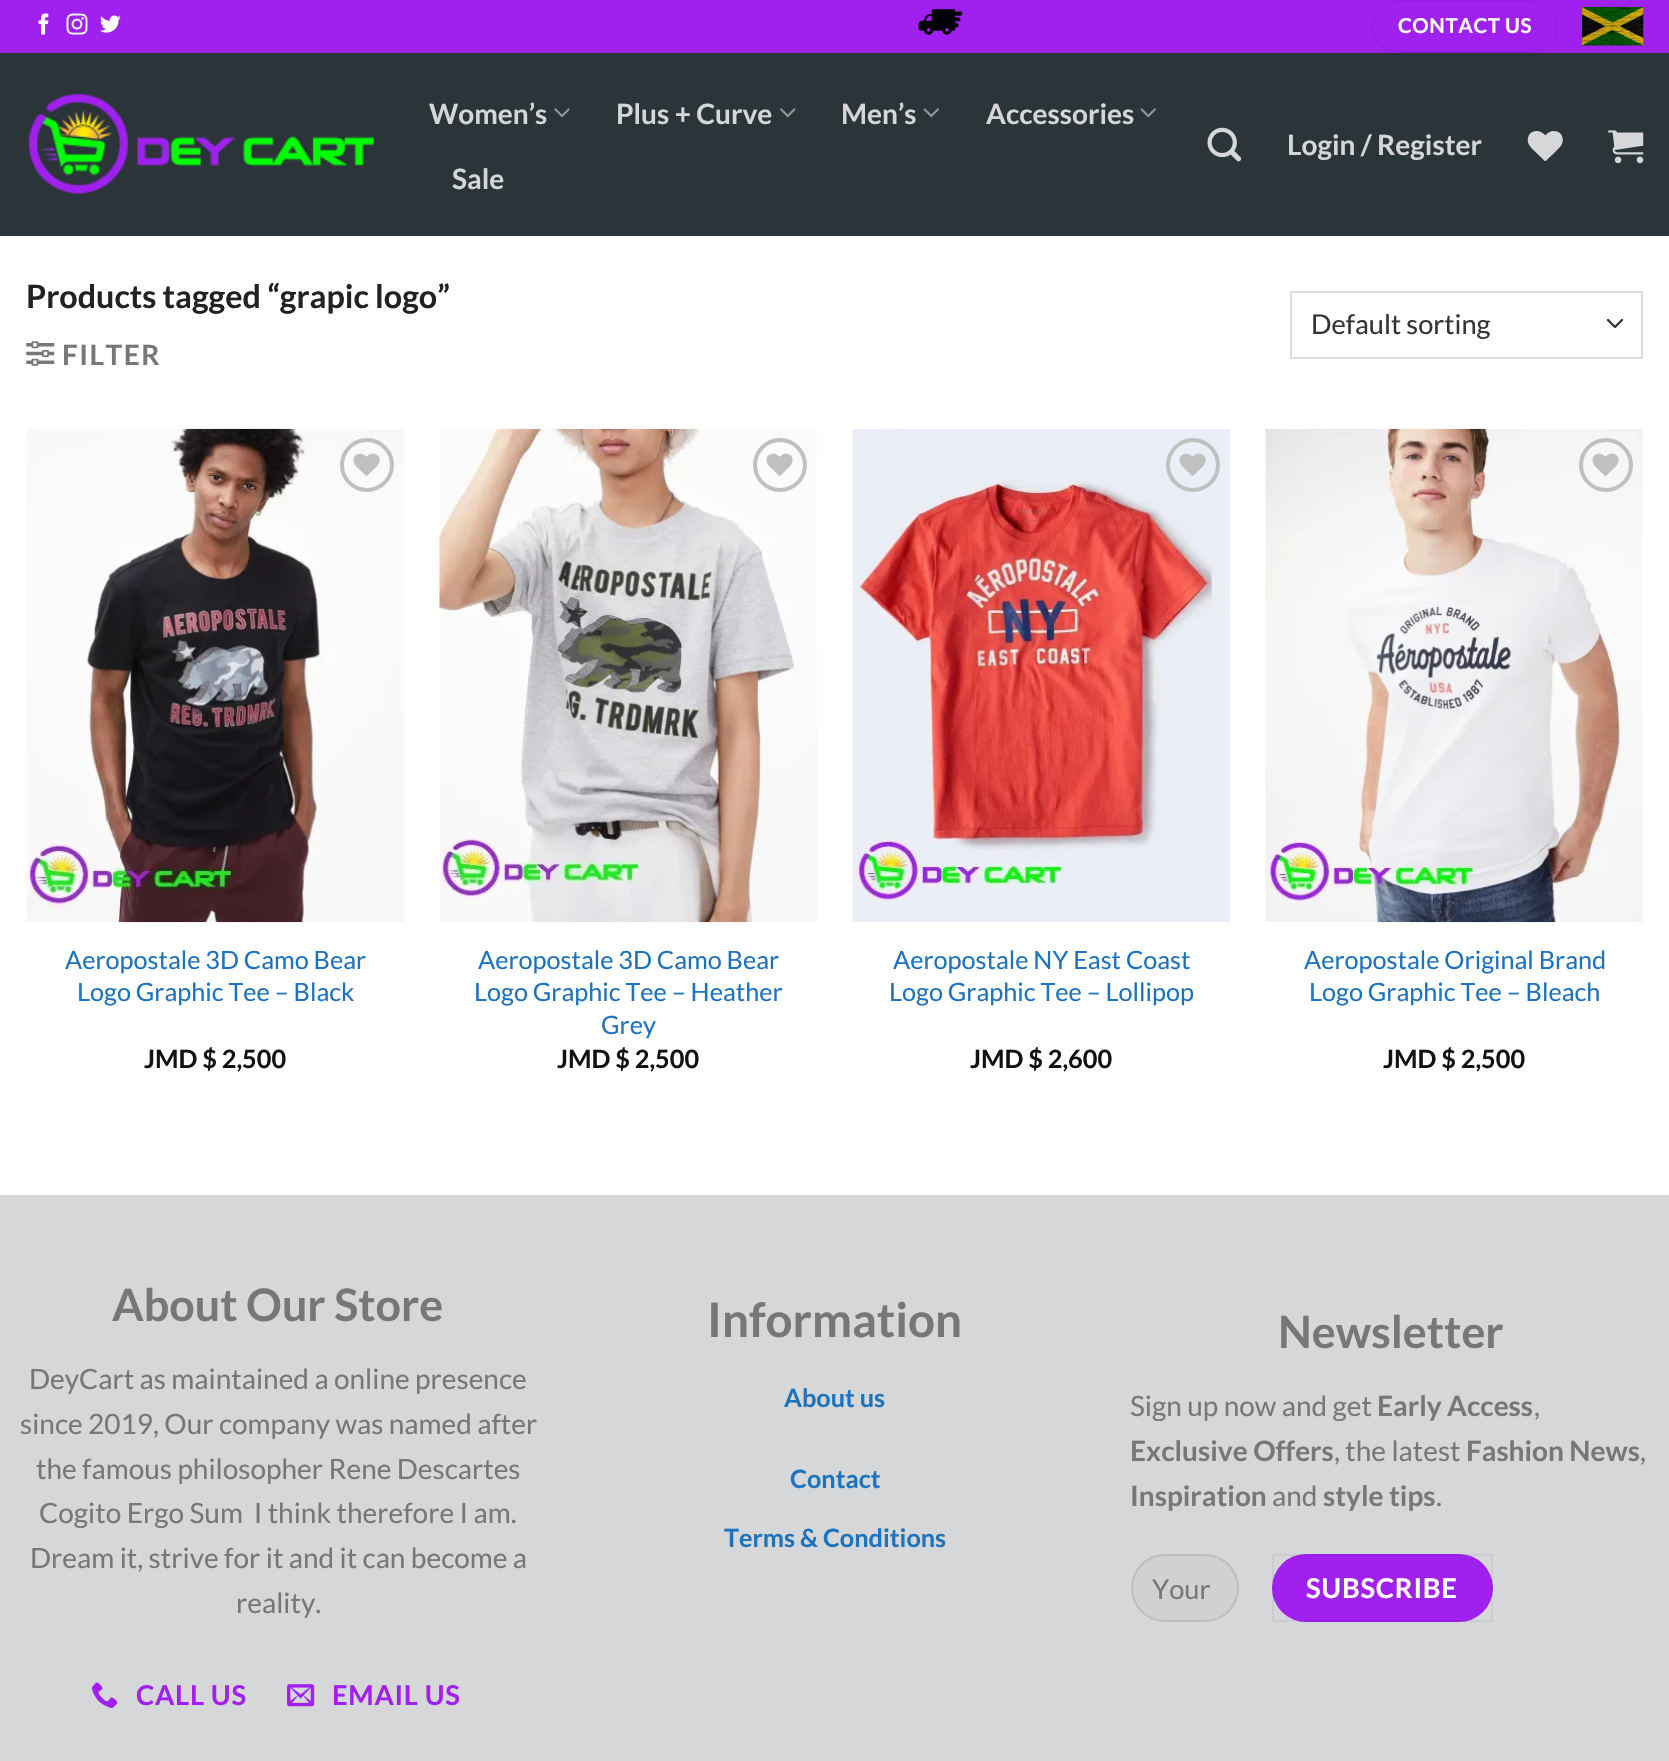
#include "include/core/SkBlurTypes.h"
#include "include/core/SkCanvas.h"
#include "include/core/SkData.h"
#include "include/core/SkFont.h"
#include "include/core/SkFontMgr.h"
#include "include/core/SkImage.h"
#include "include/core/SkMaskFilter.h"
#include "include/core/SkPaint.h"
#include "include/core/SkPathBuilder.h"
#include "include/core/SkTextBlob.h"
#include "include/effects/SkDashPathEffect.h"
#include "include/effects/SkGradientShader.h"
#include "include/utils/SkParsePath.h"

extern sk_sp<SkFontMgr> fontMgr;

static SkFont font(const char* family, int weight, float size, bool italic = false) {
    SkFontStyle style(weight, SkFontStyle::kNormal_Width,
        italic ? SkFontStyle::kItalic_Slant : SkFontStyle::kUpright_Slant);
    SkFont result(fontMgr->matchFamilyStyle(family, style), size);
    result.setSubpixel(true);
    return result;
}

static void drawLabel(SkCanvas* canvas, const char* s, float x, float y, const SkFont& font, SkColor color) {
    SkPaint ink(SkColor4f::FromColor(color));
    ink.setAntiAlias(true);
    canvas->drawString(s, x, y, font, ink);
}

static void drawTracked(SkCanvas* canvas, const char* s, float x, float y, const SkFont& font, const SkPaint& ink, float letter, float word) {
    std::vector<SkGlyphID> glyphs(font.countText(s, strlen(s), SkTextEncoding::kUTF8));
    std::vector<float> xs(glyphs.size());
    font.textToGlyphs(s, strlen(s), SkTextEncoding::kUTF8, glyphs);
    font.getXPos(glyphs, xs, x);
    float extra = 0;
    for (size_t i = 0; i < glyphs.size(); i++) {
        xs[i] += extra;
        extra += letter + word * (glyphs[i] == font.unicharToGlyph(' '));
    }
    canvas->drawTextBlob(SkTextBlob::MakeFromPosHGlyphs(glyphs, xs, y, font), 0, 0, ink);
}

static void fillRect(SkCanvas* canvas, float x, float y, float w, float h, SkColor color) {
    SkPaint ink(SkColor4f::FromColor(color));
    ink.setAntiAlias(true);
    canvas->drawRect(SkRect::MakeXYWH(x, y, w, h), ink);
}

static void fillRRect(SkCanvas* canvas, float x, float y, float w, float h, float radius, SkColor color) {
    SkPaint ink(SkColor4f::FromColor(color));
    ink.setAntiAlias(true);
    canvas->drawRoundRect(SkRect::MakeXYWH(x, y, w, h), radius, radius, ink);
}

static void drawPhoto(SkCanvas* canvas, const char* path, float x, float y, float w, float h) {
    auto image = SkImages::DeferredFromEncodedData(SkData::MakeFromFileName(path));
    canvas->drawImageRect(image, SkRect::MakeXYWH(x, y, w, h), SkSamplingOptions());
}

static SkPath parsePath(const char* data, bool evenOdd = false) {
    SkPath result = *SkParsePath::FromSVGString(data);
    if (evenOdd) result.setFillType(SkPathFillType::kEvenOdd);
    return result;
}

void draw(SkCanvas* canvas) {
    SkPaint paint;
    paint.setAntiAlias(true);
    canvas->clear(0xFFFFFFFF);
    fillRect(canvas, 0, 0, 1669, 53, 0xFFA020F0);
    drawPhoto(canvas, "assets/img1.png", 38, 13, 11, 22);
    drawPhoto(canvas, "assets/img2.png", 66, 13, 22, 22);
    drawPhoto(canvas, "assets/img3.png", 100, 15, 21, 18);
    drawPhoto(canvas, "assets/img4.png", 918, 9, 45, 26);
    paint.setStroke(true);
    paint.setStrokeWidth(2);
    paint.setColor(0xFF981EE4);
    canvas->drawRoundRect(SkRect::MakeXYWH(1373, 1, 184, 51), 25.5f, 25.5f, paint);
    SkFont font1 = font("Lato", 700, 20.5f);
    paint.setStroke(false);
    paint.setColor(0xFFFFFFFF);
    drawTracked(canvas, "CONTACT US", 1398, 33, font1, paint, 0.6f, 0);
    drawPhoto(canvas, "assets/img5.png", 1582, 7, 62, 39);
    fillRect(canvas, 0, 53, 1669, 183, 0xFF2A3439);
    drawPhoto(canvas, "assets/img6.png", 28, 94, 346, 100);
    SkFont font2 = font("Lato", 700, 28);
    drawLabel(canvas, "Women’s", 429, 124, font2, 0xFFD4D6D7);
    drawPhoto(canvas, "assets/img7.png", 554, 108, 16, 10);
    drawLabel(canvas, "Plus + Curve", 616, 124, font2, 0xFFD4D6D7);
    drawPhoto(canvas, "assets/img8.png", 780, 108, 16, 10);
    drawLabel(canvas, "Men’s", 841, 124, font2, 0xFFD4D6D7);
    drawPhoto(canvas, "assets/img9.png", 923, 108, 16, 10);
    drawLabel(canvas, "Accessories", 986, 124, font2, 0xFFD4D6D7);
    drawPhoto(canvas, "assets/img9.png", 1140, 108, 16, 10);
    drawLabel(canvas, "Sale", 452, 189, font2, 0xFFD4D6D7);
    drawPhoto(canvas, "assets/img10.png", 1207, 127, 35, 35);
    drawLabel(canvas, "Login / Register", 1287, 155, font2, 0xFFD4D6D7);
    drawPhoto(canvas, "assets/img11.png", 1527, 131, 36, 30);
    drawPhoto(canvas, "assets/img12.png", 1608, 130, 36, 34);
    SkFont font3 = font("Lato", 700, 32.25f);
    drawLabel(canvas, "Products tagged “grapic logo”", 26, 308, font3, 0xFF222222);
    drawPhoto(canvas, "assets/img13.png", 26, 341, 29, 25);
    paint.setColor(0xFF777777);
    drawTracked(canvas, "FILTER", 62, 365, font2, paint, 1.5f, 0);
    paint.setStroke(true);
    paint.setStrokeWidth(2.3f);
    paint.setStrokeCap(SkPaint::kRound_Cap);
    paint.setStrokeJoin(SkPaint::kRound_Join);
    paint.setColor(0xFF333333);
    canvas->drawPath(parsePath("M1608 320L1615 327L1622 320"), paint);
    paint.setStrokeWidth(2);
    paint.setStrokeCap(SkPaint::kButt_Cap);
    paint.setStrokeJoin(SkPaint::kMiter_Join);
    paint.setColor(0xFFDDDDDD);
    canvas->drawRect(SkRect::MakeXYWH(1291, 292, 351, 66), paint);
    SkFont font4 = font("Lato", 400, 27.25f);
    drawLabel(canvas, "Default sorting", 1311, 334, font4, 0xFF333333);
    drawPhoto(canvas, "assets/img14.png", 26, 428, 378, 495);
    paint.setStrokeWidth(4);
    paint.setColor(0xFFC0C0C0);
    canvas->drawCircle(367, 465, 25, paint);
    drawPhoto(canvas, "assets/img15.png", 353, 453, 27, 23);
    SkFont font5 = font("Lato", 400, 25.25f);
    drawLabel(canvas, "Aeropostale 3D Camo Bear", 65, 969, font5, 0xFF1E73BE);
    drawLabel(canvas, "Logo Graphic Tee – Black", 77, 1001, font5, 0xFF1E73BE);
    SkFont font6 = font("Lato", 700, 25.25f);
    drawLabel(canvas, "JMD $ 2,500", 144, 1068, font6, 0xFF111111);
    drawPhoto(canvas, "assets/img16.png", 439, 428, 378, 495);
    canvas->drawCircle(780, 465, 25, paint);
    drawPhoto(canvas, "assets/img17.png", 766, 453, 27, 23);
    drawLabel(canvas, "Aeropostale 3D Camo Bear", 478, 969, font5, 0xFF1E73BE);
    drawLabel(canvas, "Logo Graphic Tee – Heather", 474, 1001, font5, 0xFF1E73BE);
    drawLabel(canvas, "Grey", 601, 1034, font5, 0xFF1E73BE);
    drawLabel(canvas, "JMD $ 2,500", 557, 1068, font6, 0xFF111111);
    drawPhoto(canvas, "assets/img18.png", 852, 429, 378, 493);
    canvas->drawCircle(1193, 465, 25, paint);
    drawPhoto(canvas, "assets/img19.png", 1179, 453, 27, 23);
    drawLabel(canvas, "Aeropostale NY East Coast", 893, 969, font5, 0xFF1E73BE);
    drawLabel(canvas, "Logo Graphic Tee – Lollipop", 889, 1001, font5, 0xFF1E73BE);
    drawLabel(canvas, "JMD $ 2,600", 970, 1068, font6, 0xFF111111);
    drawPhoto(canvas, "assets/img20.png", 1265, 428, 378, 495);
    canvas->drawCircle(1606, 465, 25, paint);
    drawPhoto(canvas, "assets/img21.png", 1592, 453, 27, 23);
    drawLabel(canvas, "Aeropostale Original Brand", 1304, 969, font5, 0xFF1E73BE);
    drawLabel(canvas, "Logo Graphic Tee – Bleach", 1309, 1001, font5, 0xFF1E73BE);
    drawLabel(canvas, "JMD $ 2,500", 1383, 1068, font6, 0xFF111111);
    fillRect(canvas, 0, 1195, 1669, 566, 0xFFD5D7D8);
    SkFont font7 = font("Lato", 700, 44.75f);
    drawLabel(canvas, "About Our Store", 112, 1321, font7, 0xFF777777);
    SkFont font8 = font("Lato", 400, 28);
    drawLabel(canvas, "DeyCart as maintained a online presence", 29, 1389, font8, 0xFF777777);
    drawLabel(canvas, "since 2019, Our company was named after", 20, 1434, font8, 0xFF777777);
    drawLabel(canvas, "the famous philosopher Rene Descartes", 36, 1479, font8, 0xFF777777);
    drawLabel(canvas, "Cogito Ergo Sum  I think therefore I am.", 39, 1523, font8, 0xFF777777);
    drawLabel(canvas, "Dream it, strive for it and it can become a", 30, 1568, font8, 0xFF777777);
    drawLabel(canvas, "reality.", 236, 1613, font8, 0xFF777777);
    drawPhoto(canvas, "assets/img22.png", 91, 1682, 27, 26);
    SkFont font9 = font("Lato", 700, 27.25f);
    paint.setStroke(false);
    paint.setColor(0xFFA020F0);
    drawTracked(canvas, "CALL US", 136, 1705, font9, paint, 0.75f, 0);
    drawPhoto(canvas, "assets/img23.png", 287, 1684, 28, 23);
    drawTracked(canvas, "EMAIL US", 332, 1705, font9, paint, 0.75f, 0);
    SkFont font10 = font("Lato", 700, 47.5f);
    drawLabel(canvas, "Information", 707, 1337, font10, 0xFF777777);
    drawLabel(canvas, "About us", 784, 1407, font6, 0xFF1E73BE);
    drawLabel(canvas, "Contact", 790, 1488, font6, 0xFF1E73BE);
    drawLabel(canvas, "Terms & Conditions", 724, 1547, font6, 0xFF1E73BE);
    drawLabel(canvas, "Newsletter", 1278, 1348, font7, 0xFF777777);
    drawLabel(canvas, "Sign up now and get", 1130, 1416, font8, 0xFF777777);
    drawLabel(canvas, "Early Access", 1377, 1416, font2, 0xFF777777);
    drawLabel(canvas, ",", 1534, 1416, font8, 0xFF777777);
    drawLabel(canvas, "Exclusive Offers", 1130, 1461, font2, 0xFF777777);
    drawLabel(canvas, ", the latest", 1334, 1461, font8, 0xFF777777);
    drawLabel(canvas, "Fashion News", 1466, 1461, font2, 0xFF777777);
    drawLabel(canvas, ",", 1640, 1461, font8, 0xFF777777);
    drawLabel(canvas, "Inspiration", 1130, 1506, font2, 0xFF777777);
    drawLabel(canvas, "and", 1272, 1506, font8, 0xFF777777);
    drawLabel(canvas, "style tips", 1323, 1506, font2, 0xFF777777);
    drawLabel(canvas, ".", 1436, 1506, font8, 0xFF777777);
    fillRRect(canvas, 1131, 1554, 108, 68, 34, 0xFFCFD1D2);
    paint.setStroke(true);
    paint.setStrokeWidth(2);
    paint.setColor(0x17000000);
    canvas->drawRoundRect(SkRect::MakeXYWH(1132, 1555, 106, 66), 33, 33, paint);
    drawLabel(canvas, "Your", 1152, 1599, font4, 0xFF777777);
    fillRRect(canvas, 1272, 1554, 221, 68, 34, 0xFFA020F0);
    paint.setColor(0x0D000000);
    canvas->drawRect(SkRect::MakeXYWH(1273, 1555, 219, 66), paint);
    paint.setStroke(false);
    paint.setColor(0xFFFFFFFF);
    drawTracked(canvas, "SUBSCRIBE", 1306, 1598, font9, paint, 0.75f, 0);
}
